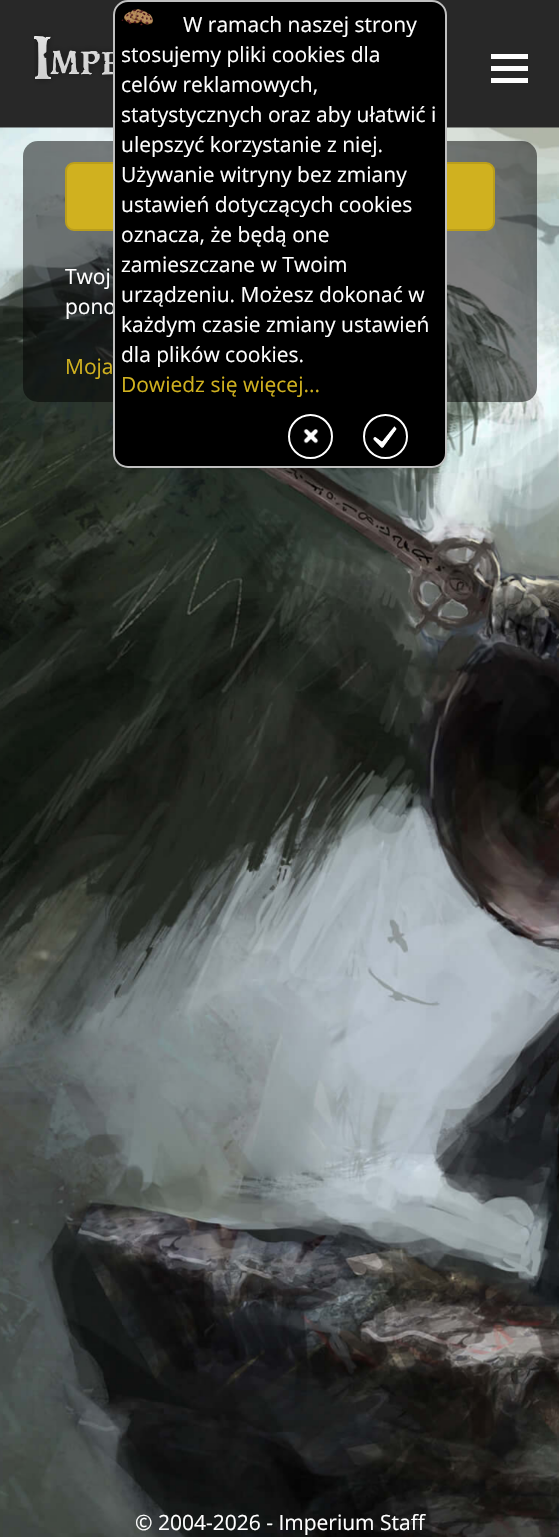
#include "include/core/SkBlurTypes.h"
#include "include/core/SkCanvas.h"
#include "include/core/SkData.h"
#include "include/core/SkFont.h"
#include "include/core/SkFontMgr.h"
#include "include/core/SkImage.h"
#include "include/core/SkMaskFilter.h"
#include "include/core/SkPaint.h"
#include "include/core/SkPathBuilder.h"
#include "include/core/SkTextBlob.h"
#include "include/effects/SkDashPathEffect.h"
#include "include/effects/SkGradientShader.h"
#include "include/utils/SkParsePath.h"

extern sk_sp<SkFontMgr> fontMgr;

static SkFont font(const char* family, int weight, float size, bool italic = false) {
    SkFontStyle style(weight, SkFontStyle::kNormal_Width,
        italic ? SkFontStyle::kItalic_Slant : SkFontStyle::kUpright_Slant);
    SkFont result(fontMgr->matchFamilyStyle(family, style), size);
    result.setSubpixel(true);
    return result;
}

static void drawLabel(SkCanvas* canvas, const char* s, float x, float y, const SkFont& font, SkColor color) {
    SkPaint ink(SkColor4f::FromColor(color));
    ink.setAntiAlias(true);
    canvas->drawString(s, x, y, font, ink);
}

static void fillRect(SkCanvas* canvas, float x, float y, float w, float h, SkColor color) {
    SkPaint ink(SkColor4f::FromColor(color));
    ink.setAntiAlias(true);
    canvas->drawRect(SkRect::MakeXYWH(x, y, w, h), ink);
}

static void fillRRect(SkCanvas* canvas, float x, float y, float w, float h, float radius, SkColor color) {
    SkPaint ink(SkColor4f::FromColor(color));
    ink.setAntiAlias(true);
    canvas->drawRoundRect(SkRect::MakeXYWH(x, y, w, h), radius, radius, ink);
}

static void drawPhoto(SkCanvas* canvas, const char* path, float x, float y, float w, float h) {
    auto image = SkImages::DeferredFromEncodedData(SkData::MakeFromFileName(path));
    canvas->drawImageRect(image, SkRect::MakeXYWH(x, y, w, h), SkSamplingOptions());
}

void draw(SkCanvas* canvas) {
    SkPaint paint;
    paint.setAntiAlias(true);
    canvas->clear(0xFF282828);
    drawPhoto(canvas, "assets/img1.png", 0, 127, 559, 1410);
    fillRRect(canvas, 23, 141, 514, 261, 15, 0x80000000);
    paint.setColor(0xFFD0B11F);
    canvas->drawRoundRect(SkRect::MakeXYWH(66, 163, 428, 67), 8, 8, paint);
    paint.setStroke(true);
    paint.setStrokeWidth(2);
    paint.setColor(0xFFBA9E1C);
    canvas->drawRoundRect(SkRect::MakeXYWH(66, 163, 428, 67), 8, 8, paint);
    SkFont font1 = font("Open Sans", 400, 21);
    drawLabel(canvas, "pono", 65, 314, font1, 0xFFFFFFFF);
    paint.setStroke(false);
    paint.setColor(0xFF000000);
    canvas->drawRoundRect(SkRect::MakeXYWH(114, 1, 332, 466), 14, 14, paint);
    paint.setStroke(true);
    paint.setColor(0xFFC0C0C0);
    canvas->drawRoundRect(SkRect::MakeXYWH(114, 1, 332, 466), 14, 14, paint);
    drawPhoto(canvas, "assets/img2.png", 121, 9, 32, 17);
    drawLabel(canvas, "W ramach naszej strony", 183, 32, font1, 0xFFFFFFFF);
    drawLabel(canvas, "stosujemy pliki cookies dla", 121, 62, font1, 0xFFFFFFFF);
    drawLabel(canvas, "celów reklamowych,", 121, 92, font1, 0xFFFFFFFF);
    drawLabel(canvas, "statystycznych oraz aby ułatwić i", 121, 122, font1, 0xFFFFFFFF);
    drawLabel(canvas, "ulepszyć korzystanie z niej.", 121, 152, font1, 0xFFFFFFFF);
    drawLabel(canvas, "Używanie witryny bez zmiany", 121, 182, font1, 0xFFFFFFFF);
    drawLabel(canvas, "ustawień dotyczących cookies", 121, 212, font1, 0xFFFFFFFF);
    drawLabel(canvas, "oznacza, że będą one", 121, 242, font1, 0xFFFFFFFF);
    drawLabel(canvas, "zamieszczane w Twoim", 121, 272, font1, 0xFFFFFFFF);
    drawLabel(canvas, "urządzeniu. Możesz dokonać w", 121, 302, font1, 0xFFFFFFFF);
    drawLabel(canvas, "każdym czasie zmiany ustawień", 121, 332, font1, 0xFFFFFFFF);
    drawLabel(canvas, "dla plików cookies.", 121, 362, font1, 0xFFFFFFFF);
    drawLabel(canvas, "Dowiedz się więcej...", 121, 392, font1, 0xFFD0B11F);
    paint.setColor(0xFFFFFFFF);
    canvas->drawCircle(310.5f, 436.5f, 21.5f, paint);
    drawPhoto(canvas, "assets/img3.png", 303, 429, 16, 15);
    canvas->drawCircle(385.5f, 436.5f, 21.5f, paint);
    drawPhoto(canvas, "assets/img4.png", 373, 426, 24, 22);
    drawPhoto(canvas, "assets/img5.png", 34, 30, 79, 55);
    fillRect(canvas, 491, 66, 37, 5, 0xFFFFFFFF);
    fillRect(canvas, 491, 54, 37, 5, 0xFFFFFFFF);
    fillRect(canvas, 491, 78, 37, 5, 0xFFFFFFFF);
    drawLabel(canvas, "Twoj", 65, 284, font1, 0xFFFFFFFF);
    drawLabel(canvas, "Moja", 65, 374, font1, 0xFFD0B11F);
    drawLabel(canvas, "© 2004-2026 - Imperium Staff", 135, 1530, font1, 0xFFFFFFFF);
}
